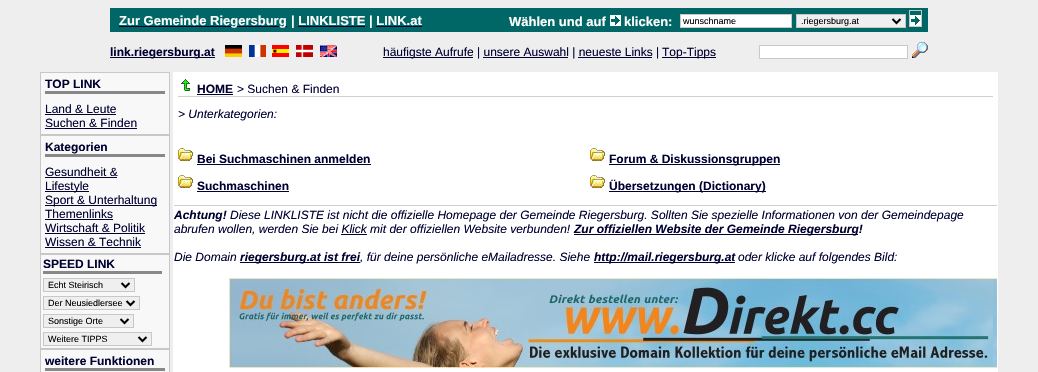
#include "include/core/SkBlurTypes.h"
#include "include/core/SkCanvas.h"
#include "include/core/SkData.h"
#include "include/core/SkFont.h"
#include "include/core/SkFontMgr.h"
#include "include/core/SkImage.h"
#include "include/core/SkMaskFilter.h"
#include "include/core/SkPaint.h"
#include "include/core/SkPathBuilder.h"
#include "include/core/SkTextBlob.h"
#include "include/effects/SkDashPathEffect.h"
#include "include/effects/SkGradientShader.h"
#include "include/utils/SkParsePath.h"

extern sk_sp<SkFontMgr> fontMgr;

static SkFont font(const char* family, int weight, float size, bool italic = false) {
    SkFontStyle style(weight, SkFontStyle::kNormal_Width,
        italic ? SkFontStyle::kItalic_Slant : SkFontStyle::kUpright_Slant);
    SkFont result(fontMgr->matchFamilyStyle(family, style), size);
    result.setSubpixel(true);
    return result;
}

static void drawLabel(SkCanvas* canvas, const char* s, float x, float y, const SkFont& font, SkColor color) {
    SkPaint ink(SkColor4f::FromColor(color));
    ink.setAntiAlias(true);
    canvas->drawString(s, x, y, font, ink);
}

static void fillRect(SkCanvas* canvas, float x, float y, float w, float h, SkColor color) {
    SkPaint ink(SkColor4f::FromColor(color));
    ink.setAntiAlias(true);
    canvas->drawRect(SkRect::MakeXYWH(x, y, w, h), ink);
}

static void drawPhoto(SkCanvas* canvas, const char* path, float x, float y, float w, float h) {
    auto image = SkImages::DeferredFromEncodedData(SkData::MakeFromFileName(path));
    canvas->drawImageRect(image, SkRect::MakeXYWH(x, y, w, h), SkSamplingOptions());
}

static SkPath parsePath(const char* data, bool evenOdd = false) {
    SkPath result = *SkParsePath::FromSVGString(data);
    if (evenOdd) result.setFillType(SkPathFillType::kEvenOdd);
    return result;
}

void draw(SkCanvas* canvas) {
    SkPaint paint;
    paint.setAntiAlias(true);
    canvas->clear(0xFFEEEEEE);
    fillRect(canvas, 110, 8, 818, 24, 0xFF006666);
    fillRect(canvas, 119, 26, 168, 1, 0xFF000033);
    SkFont font1 = font("Liberation Sans", 700, 13);
    drawLabel(canvas, "Zur Gemeinde Riegersburg", 119, 25, font1, 0xFFFFFFFF);
    drawLabel(canvas, "| LINKLISTE", 291, 25, font1, 0xFFFFFFFF);
    fillRect(canvas, 298, 26, 67, 1, 0xFF000033);
    drawLabel(canvas, "| LINK.at", 369, 25, font1, 0xFFFFFFFF);
    fillRect(canvas, 376, 26, 46, 1, 0xFF000033);
    drawLabel(canvas, "Wählen und auf", 509, 26, font1, 0xFFFFFFFF);
    drawPhoto(canvas, "assets/img1.png", 610, 15, 11, 11);
    drawLabel(canvas, "klicken:", 624, 26, font1, 0xFFFFFFFF);
    paint.setColor(0xFFFFFFFF);
    canvas->drawRect(SkRect::MakeXYWH(680.5f, 14.5f, 111, 13), paint);
    paint.setStroke(true);
    paint.setStrokeWidth(1);
    paint.setColor(0xFFC8C8C8);
    canvas->drawRect(SkRect::MakeXYWH(680.5f, 14.5f, 111, 13), paint);
    SkFont font2 = font("Liberation Sans", 400, 9);
    drawLabel(canvas, "wunschname", 683, 24, font2, 0xFF000000);
    paint.setStroke(false);
    paint.setColor(0xFFEFEFEF);
    canvas->drawRect(SkRect::MakeXYWH(796.5f, 14.5f, 109, 13), paint);
    paint.setStroke(true);
    paint.setColor(0xFFC8C8C8);
    canvas->drawRect(SkRect::MakeXYWH(796.5f, 14.5f, 109, 13), paint);
    paint.setStrokeWidth(2);
    paint.setColor(0xFF000000);
    canvas->drawPath(parsePath("M892.5 19L896.5 23L900.5 19"), paint);
    drawLabel(canvas, ".riegersburg.at", 801, 24, font2, 0xFF000000);
    paint.setStrokeWidth(1);
    paint.setColor(0xFFC8C8C8);
    canvas->drawRect(SkRect::MakeXYWH(909.5f, 10.5f, 12, 16), paint);
    drawPhoto(canvas, "assets/img1.png", 910, 15, 11, 11);
    fillRect(canvas, 110, 57, 105, 1, 0xFF000033);
    SkFont font3 = font("Liberation Sans", 700, 12);
    drawLabel(canvas, "link.riegersburg.at", 110, 56, font3, 0xFF000033);
    drawPhoto(canvas, "assets/img2.png", 225, 45, 17, 12);
    drawPhoto(canvas, "assets/img3.png", 249, 45, 17, 12);
    drawPhoto(canvas, "assets/img4.png", 272, 45, 17, 12);
    drawPhoto(canvas, "assets/img5.png", 296, 45, 17, 12);
    drawPhoto(canvas, "assets/img6.png", 320, 45, 17, 12);
    fillRect(canvas, 383, 57, 90, 1, 0xFF000033);
    SkFont font4 = font("Liberation Sans", 400, 12);
    drawLabel(canvas, "häufigste Aufrufe | unsere Auswahl | neueste Links |", 383, 56, font4, 0xFF000033);
    fillRect(canvas, 662, 57, 54, 1, 0xFF000033);
    drawLabel(canvas, "Top-Tipps", 662, 56, font4, 0xFF000033);
    fillRect(canvas, 483, 57, 85, 1, 0xFF000033);
    fillRect(canvas, 578, 57, 74, 1, 0xFF000033);
    paint.setStroke(false);
    paint.setColor(0xFFFFFFFF);
    canvas->drawRect(SkRect::MakeXYWH(759.5f, 45.5f, 148, 13), paint);
    paint.setStroke(true);
    paint.setColor(0xFFC8C8C8);
    canvas->drawRect(SkRect::MakeXYWH(759.5f, 45.5f, 148, 13), paint);
    drawPhoto(canvas, "assets/img7.png", 912, 42, 16, 16);
    paint.setStroke(false);
    paint.setColor(0xFFF8F8F8);
    canvas->drawRect(SkRect::MakeXYWH(40.5f, 72.5f, 129, 62), paint);
    paint.setStroke(true);
    paint.setColor(0xFFC8C8C8);
    canvas->drawRect(SkRect::MakeXYWH(40.5f, 72.5f, 129, 62), paint);
    fillRect(canvas, 45, 91, 120, 3, 0xFF888888);
    drawLabel(canvas, "TOP LINK", 45, 88, font3, 0xFF000033);
    drawLabel(canvas, "Land & Leute", 45, 113, font4, 0xFF000033);
    fillRect(canvas, 45, 114, 71, 1, 0xFF000033);
    drawLabel(canvas, "Suchen & Finden", 45, 127, font4, 0xFF000033);
    fillRect(canvas, 45, 128, 92, 1, 0xFF000033);
    paint.setStroke(false);
    paint.setColor(0xFFF8F8F8);
    canvas->drawRect(SkRect::MakeXYWH(40.5f, 135.5f, 129, 118), paint);
    paint.setStroke(true);
    paint.setColor(0xFFC8C8C8);
    canvas->drawRect(SkRect::MakeXYWH(40.5f, 135.5f, 129, 118), paint);
    fillRect(canvas, 45, 154, 120, 3, 0xFF888888);
    drawLabel(canvas, "Kategorien", 45, 151, font3, 0xFF000033);
    drawLabel(canvas, "Gesundheit &", 45, 176, font4, 0xFF000033);
    fillRect(canvas, 45, 177, 72, 1, 0xFF000033);
    fillRect(canvas, 45, 191, 44, 1, 0xFF000033);
    drawLabel(canvas, "Lifestyle", 45, 190, font4, 0xFF000033);
    fillRect(canvas, 45, 205, 112, 1, 0xFF000033);
    drawLabel(canvas, "Sport & Unterhaltung", 45, 204, font4, 0xFF000033);
    drawLabel(canvas, "Themenlinks", 45, 218, font4, 0xFF000033);
    fillRect(canvas, 45, 219, 68, 1, 0xFF000033);
    drawLabel(canvas, "Wirtschaft & Politik", 45, 232, font4, 0xFF000033);
    fillRect(canvas, 45, 233, 100, 1, 0xFF000033);
    drawLabel(canvas, "Wissen & Technik", 45, 246, font4, 0xFF000033);
    fillRect(canvas, 45, 247, 96, 1, 0xFF000033);
    paint.setStroke(false);
    paint.setColor(0xFFF8F8F8);
    canvas->drawRect(SkRect::MakeXYWH(40.5f, 254.5f, 129, 94), paint);
    paint.setStroke(true);
    paint.setColor(0xFFC8C8C8);
    canvas->drawRect(SkRect::MakeXYWH(40.5f, 254.5f, 129, 94), paint);
    fillRect(canvas, 43, 271, 119, 3, 0xFF888888);
    drawLabel(canvas, "SPEED LINK", 43, 268, font3, 0xFF000033);
    paint.setStroke(false);
    paint.setColor(0xFFEFEFEF);
    canvas->drawRect(SkRect::MakeXYWH(43.5f, 278.5f, 91, 13), paint);
    paint.setStroke(true);
    paint.setColor(0xFFC8C8C8);
    canvas->drawRect(SkRect::MakeXYWH(43.5f, 278.5f, 91, 13), paint);
    paint.setStrokeWidth(2);
    paint.setColor(0xFF000000);
    canvas->drawPath(parsePath("M121.5 283L125.5 287L129.5 283"), paint);
    drawLabel(canvas, "Echt Steirisch", 48, 288, font2, 0xFF000000);
    paint.setStroke(false);
    paint.setColor(0xFFEFEFEF);
    canvas->drawRect(SkRect::MakeXYWH(43.5f, 296.5f, 96, 13), paint);
    paint.setStroke(true);
    paint.setStrokeWidth(1);
    paint.setColor(0xFFC8C8C8);
    canvas->drawRect(SkRect::MakeXYWH(43.5f, 296.5f, 96, 13), paint);
    paint.setStrokeWidth(2);
    paint.setColor(0xFF000000);
    canvas->drawPath(parsePath("M126.5 301L130.5 305L134.5 301"), paint);
    drawLabel(canvas, "Der Neusiedlersee", 48, 306, font2, 0xFF000000);
    paint.setStroke(false);
    paint.setColor(0xFFEFEFEF);
    canvas->drawRect(SkRect::MakeXYWH(43.5f, 314.5f, 90, 13), paint);
    paint.setStroke(true);
    paint.setStrokeWidth(1);
    paint.setColor(0xFFC8C8C8);
    canvas->drawRect(SkRect::MakeXYWH(43.5f, 314.5f, 90, 13), paint);
    paint.setStrokeWidth(2);
    paint.setColor(0xFF000000);
    canvas->drawPath(parsePath("M120.5 319L124.5 323L128.5 319"), paint);
    drawLabel(canvas, "Sonstige Orte", 48, 324, font2, 0xFF000000);
    paint.setStroke(false);
    paint.setColor(0xFFEFEFEF);
    canvas->drawRect(SkRect::MakeXYWH(43.5f, 332.5f, 108, 13), paint);
    paint.setStroke(true);
    paint.setStrokeWidth(1);
    paint.setColor(0xFFC8C8C8);
    canvas->drawRect(SkRect::MakeXYWH(43.5f, 332.5f, 108, 13), paint);
    paint.setStrokeWidth(2);
    paint.setColor(0xFF000000);
    canvas->drawPath(parsePath("M138.5 337L142.5 341L146.5 337"), paint);
    drawLabel(canvas, "Weitere TIPPS", 48, 342, font2, 0xFF000000);
    paint.setStroke(false);
    paint.setColor(0xFFF8F8F8);
    canvas->drawRect(SkRect::MakeXYWH(40.5f, 349.5f, 129, 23), paint);
    paint.setStroke(true);
    paint.setStrokeWidth(1);
    paint.setColor(0xFFC8C8C8);
    canvas->drawRect(SkRect::MakeXYWH(40.5f, 349.5f, 129, 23), paint);
    fillRect(canvas, 45, 368, 120, 3, 0xFF888888);
    drawLabel(canvas, "weitere Funktionen", 45, 365, font3, 0xFF000033);
    fillRect(canvas, 173, 72, 825, 300, 0xFFFFFFFF);
    fillRect(canvas, 178, 96, 815, 1, 0xFFD0D0D0);
    drawPhoto(canvas, "assets/img8.png", 181, 79, 9, 12);
    drawLabel(canvas, "HOME", 197, 93, font3, 0xFF000033);
    fillRect(canvas, 197, 94, 36, 1, 0xFF000033);
    drawLabel(canvas, "> Suchen & Finden", 237, 93, font4, 0xFF000033);
    fillRect(canvas, 174, 205, 823, 1, 0xFFD0D0D0);
    SkFont font5 = font("Liberation Sans", 400, 12, true);
    drawLabel(canvas, "> Unterkategorien:", 178, 118, font5, 0xFF000033);
    drawPhoto(canvas, "assets/img9.png", 178, 148, 15, 13);
    drawLabel(canvas, "Bei Suchmaschinen anmelden", 197, 163, font3, 0xFF000033);
    fillRect(canvas, 197, 164, 174, 1, 0xFF000033);
    drawPhoto(canvas, "assets/img9.png", 590, 148, 15, 13);
    fillRect(canvas, 609, 164, 171, 1, 0xFF000033);
    drawLabel(canvas, "Forum & Diskussionsgruppen", 609, 163, font3, 0xFF000033);
    drawPhoto(canvas, "assets/img9.png", 178, 175, 15, 13);
    drawLabel(canvas, "Suchmaschinen", 197, 190, font3, 0xFF000033);
    fillRect(canvas, 197, 191, 92, 1, 0xFF000033);
    drawPhoto(canvas, "assets/img9.png", 590, 175, 15, 13);
    fillRect(canvas, 609, 191, 157, 1, 0xFF000033);
    drawLabel(canvas, "Übersetzungen (Dictionary)", 609, 190, font3, 0xFF000033);
    SkFont font6 = font("Liberation Sans", 700, 12, true);
    drawLabel(canvas, "Achtung!", 174, 219, font6, 0xFF000033);
    drawLabel(canvas, "Diese LINKLISTE ist nicht die offizielle Homepage der Gemeinde Riegersburg. Sollten Sie spezielle Informationen von der Gemeindepage", 230, 219, font5, 0xFF000033);
    drawLabel(canvas, "abrufen wollen, werden Sie bei Klick mit der offiziellen Website verbunden!", 174, 233, font5, 0xFF000033);
    fillRect(canvas, 574, 234, 284, 1, 0xFF000033);
    drawLabel(canvas, "Zur offiziellen Website der Gemeinde Riegersburg!", 574, 233, font6, 0xFF000033);
    fillRect(canvas, 341, 234, 26, 1, 0xFF000033);
    drawLabel(canvas, "Die Domain", 174, 261, font5, 0xFF000033);
    fillRect(canvas, 240, 262, 120, 1, 0xFF000033);
    drawLabel(canvas, "riegersburg.at ist frei", 240, 261, font6, 0xFF000033);
    drawLabel(canvas, ", für deine persönliche eMailadresse. Siehe", 360, 261, font5, 0xFF000033);
    fillRect(canvas, 594, 262, 141, 1, 0xFF000033);
    drawLabel(canvas, "http://mail.riegersburg.at", 594, 261, font6, 0xFF000033);
    drawLabel(canvas, "oder klicke auf folgendes Bild:", 738, 261, font5, 0xFF000033);
    drawPhoto(canvas, "assets/img10.png", 229, 278, 768, 90);
}
